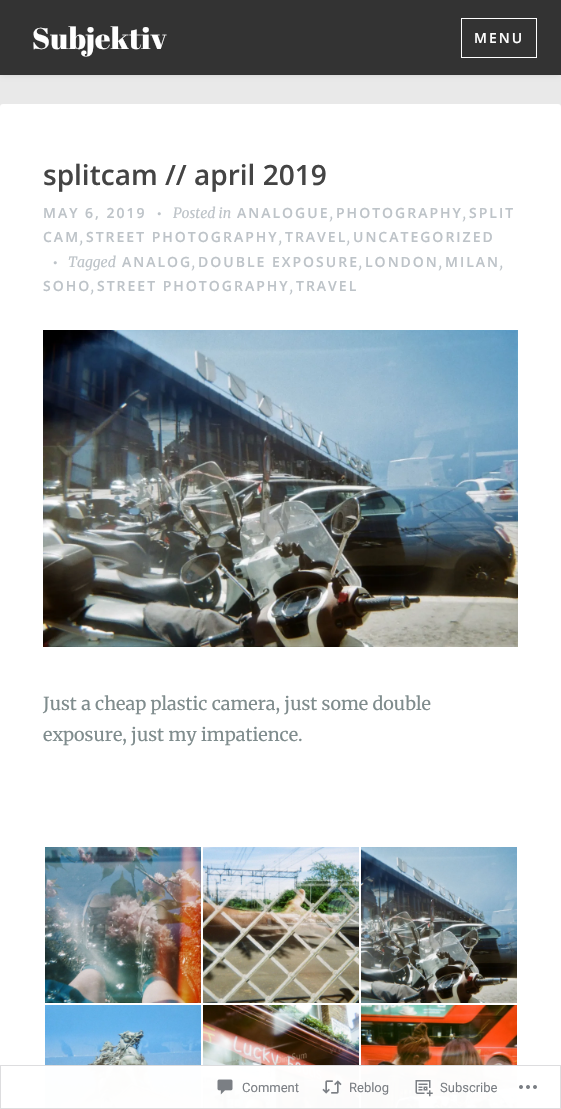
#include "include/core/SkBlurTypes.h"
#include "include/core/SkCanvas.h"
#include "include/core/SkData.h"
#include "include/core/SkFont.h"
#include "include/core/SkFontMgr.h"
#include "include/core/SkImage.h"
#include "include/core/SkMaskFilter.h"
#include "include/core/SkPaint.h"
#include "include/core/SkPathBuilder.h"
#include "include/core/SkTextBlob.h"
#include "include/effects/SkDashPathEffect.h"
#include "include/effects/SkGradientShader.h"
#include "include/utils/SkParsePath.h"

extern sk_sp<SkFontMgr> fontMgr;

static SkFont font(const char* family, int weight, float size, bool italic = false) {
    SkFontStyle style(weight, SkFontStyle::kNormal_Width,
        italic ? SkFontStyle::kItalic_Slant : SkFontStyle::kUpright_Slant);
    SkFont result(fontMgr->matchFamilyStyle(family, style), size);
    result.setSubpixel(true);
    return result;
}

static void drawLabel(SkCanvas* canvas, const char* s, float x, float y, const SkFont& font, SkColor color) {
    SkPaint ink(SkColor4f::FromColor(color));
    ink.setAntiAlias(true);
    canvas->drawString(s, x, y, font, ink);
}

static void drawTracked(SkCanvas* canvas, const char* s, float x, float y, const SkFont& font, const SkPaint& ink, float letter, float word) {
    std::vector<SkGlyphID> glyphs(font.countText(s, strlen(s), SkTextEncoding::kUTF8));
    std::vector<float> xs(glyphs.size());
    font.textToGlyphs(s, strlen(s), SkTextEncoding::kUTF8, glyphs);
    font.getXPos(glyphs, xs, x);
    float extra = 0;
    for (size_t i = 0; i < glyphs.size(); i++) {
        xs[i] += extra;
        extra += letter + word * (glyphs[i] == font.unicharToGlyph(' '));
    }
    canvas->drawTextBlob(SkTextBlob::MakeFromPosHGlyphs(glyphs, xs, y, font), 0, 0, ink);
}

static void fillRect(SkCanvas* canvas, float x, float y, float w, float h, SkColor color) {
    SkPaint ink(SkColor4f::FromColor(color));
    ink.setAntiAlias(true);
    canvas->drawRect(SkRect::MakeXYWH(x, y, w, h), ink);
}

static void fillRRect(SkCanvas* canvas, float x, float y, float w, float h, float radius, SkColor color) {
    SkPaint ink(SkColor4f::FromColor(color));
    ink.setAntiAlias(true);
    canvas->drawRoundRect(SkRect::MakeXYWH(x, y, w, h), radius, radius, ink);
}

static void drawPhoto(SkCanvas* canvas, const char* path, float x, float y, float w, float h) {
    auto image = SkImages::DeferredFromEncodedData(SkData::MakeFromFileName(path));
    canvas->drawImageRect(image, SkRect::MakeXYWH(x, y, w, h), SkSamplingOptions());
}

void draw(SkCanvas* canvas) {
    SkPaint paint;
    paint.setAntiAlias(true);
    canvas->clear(0xFFE9E9E9);
    paint.setColor(0x1A000000);
    paint.setMaskFilter(SkMaskFilter::MakeBlur(kNormal_SkBlurStyle, 2.5f));
    canvas->drawRect(SkRect::MakeXYWH(1, 2, 559, 73), paint);
    paint.setMaskFilter(nullptr);
    fillRect(canvas, 0, 0, 561, 75, 0xFF333333);
    SkFont font1 = font("Abril Fatface", 400, 30);
    drawLabel(canvas, "Subjektiv", 32, 49, font1, 0xFFFFFFFF);
    paint.setStroke(true);
    paint.setStrokeWidth(1);
    paint.setColor(0xFFFFFFFF);
    canvas->drawRect(SkRect::MakeXYWH(461.5f, 18.5f, 75, 39), paint);
    SkFont font2 = font("Open Sans", 600, 14);
    paint.setStroke(false);
    drawTracked(canvas, "MENU", 474, 43, font2, paint, 2, 0);
    fillRRect(canvas, 0, 104, 561, 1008, 3, 0xFFFFFFFF);
    SkFont font3 = font("Open Sans", 600, 28);
    drawLabel(canvas, "splitcam // april 2019", 43, 185, font3, 0xFF444444);
    SkFont font4 = font("Merriweather", 400, 14, true);
    drawLabel(canvas, "Posted in", 173, 218, font4, 0xFFBDC3C8);
    paint.setColor(0xFFBDC3C8);
    drawTracked(canvas, "ANALOGUE", 237, 218, font2, paint, 2, 0);
    drawLabel(canvas, ",", 330, 218, font4, 0xFFBDC3C8);
    drawTracked(canvas, "PHOTOGRAPHY", 336, 218, font2, paint, 2, 0);
    drawLabel(canvas, ",", 463, 218, font4, 0xFFBDC3C8);
    drawTracked(canvas, "SPLIT", 469, 218, font2, paint, 2, 0);
    drawTracked(canvas, "CAM", 43, 242, font2, paint, 2, 0);
    drawLabel(canvas, ",", 80, 242, font4, 0xFFBDC3C8);
    drawTracked(canvas, "STREET PHOTOGRAPHY", 86, 242, font2, paint, 2, 0);
    drawLabel(canvas, ",", 279, 242, font4, 0xFFBDC3C8);
    drawTracked(canvas, "TRAVEL", 285, 242, font2, paint, 2, 0);
    drawLabel(canvas, ",", 347, 242, font4, 0xFFBDC3C8);
    drawTracked(canvas, "UNCATEGORIZED", 353, 242, font2, paint, 2, 0);
    drawPhoto(canvas, "assets/img1.png", 53, 261, 4, 4);
    drawTracked(canvas, "MAY 6, 2019", 43, 218, font2, paint, 2, 0);
    drawPhoto(canvas, "assets/img1.png", 157, 212, 4, 4);
    drawLabel(canvas, "Tagged", 68, 267, font4, 0xFFBDC3C8);
    drawTracked(canvas, "ANALOG", 122, 267, font2, paint, 2, 0);
    drawTracked(canvas, "DOUBLE EXPOSURE", 198, 267, font2, paint, 2, 0);
    drawTracked(canvas, "LONDON", 365, 267, font2, paint, 2, 0);
    drawTracked(canvas, "MILAN", 445, 267, font2, paint, 2, 0);
    drawLabel(canvas, ",", 192, 267, font4, 0xFFBDC3C8);
    drawLabel(canvas, ",", 359, 267, font4, 0xFFBDC3C8);
    drawLabel(canvas, ",", 439, 267, font4, 0xFFBDC3C8);
    drawLabel(canvas, ",", 500, 267, font4, 0xFFBDC3C8);
    drawTracked(canvas, "SOHO", 43, 291, font2, paint, 2, 0);
    drawTracked(canvas, "STREET PHOTOGRAPHY", 97, 291, font2, paint, 2, 0);
    drawTracked(canvas, "TRAVEL", 296, 291, font2, paint, 2, 0);
    drawLabel(canvas, ",", 91, 291, font4, 0xFFBDC3C8);
    drawLabel(canvas, ",", 290, 291, font4, 0xFFBDC3C8);
    drawPhoto(canvas, "assets/img2.png", 43, 330, 475, 317);
    SkFont font5 = font("Merriweather", 400, 18);
    drawLabel(canvas, "Just a cheap plastic camera, just some double", 43, 710, font5, 0xFF7F8C8D);
    drawLabel(canvas, "exposure, just my impatience.", 43, 741, font5, 0xFF7F8C8D);
    drawPhoto(canvas, "assets/img3.png", 45, 847, 156, 156);
    drawPhoto(canvas, "assets/img4.png", 203, 847, 156, 156);
    drawPhoto(canvas, "assets/img5.png", 361, 847, 156, 156);
    drawPhoto(canvas, "assets/img6.png", 45, 1005, 156, 104);
    drawPhoto(canvas, "assets/img7.png", 203, 1005, 156, 104);
    drawPhoto(canvas, "assets/img8.png", 361, 1005, 156, 104);
    fillRect(canvas, 45, 1065, 472, 44, 0xFAFFFFFF);
    paint.setStroke(true);
    paint.setColor(0xFADCDCDE);
    canvas->drawRect(SkRect::MakeXYWH(0.5f, 1065.5f, 560, 43), paint);
    drawPhoto(canvas, "assets/img9.png", 217, 1079, 16, 16);
    SkFont font6 = font("Roboto", 400, 13);
    drawLabel(canvas, "Comment", 242, 1092, font6, 0xFF7B7F84);
    drawPhoto(canvas, "assets/img10.png", 322, 1080, 20, 14);
    drawLabel(canvas, "Reblog", 349, 1092, font6, 0xFF7B7F84);
    drawPhoto(canvas, "assets/img11.png", 415, 1080, 18, 17);
    drawLabel(canvas, "Subscribe", 440, 1092, font6, 0xFF7B7F84);
    drawPhoto(canvas, "assets/img12.png", 519, 1085, 18, 4);
}
